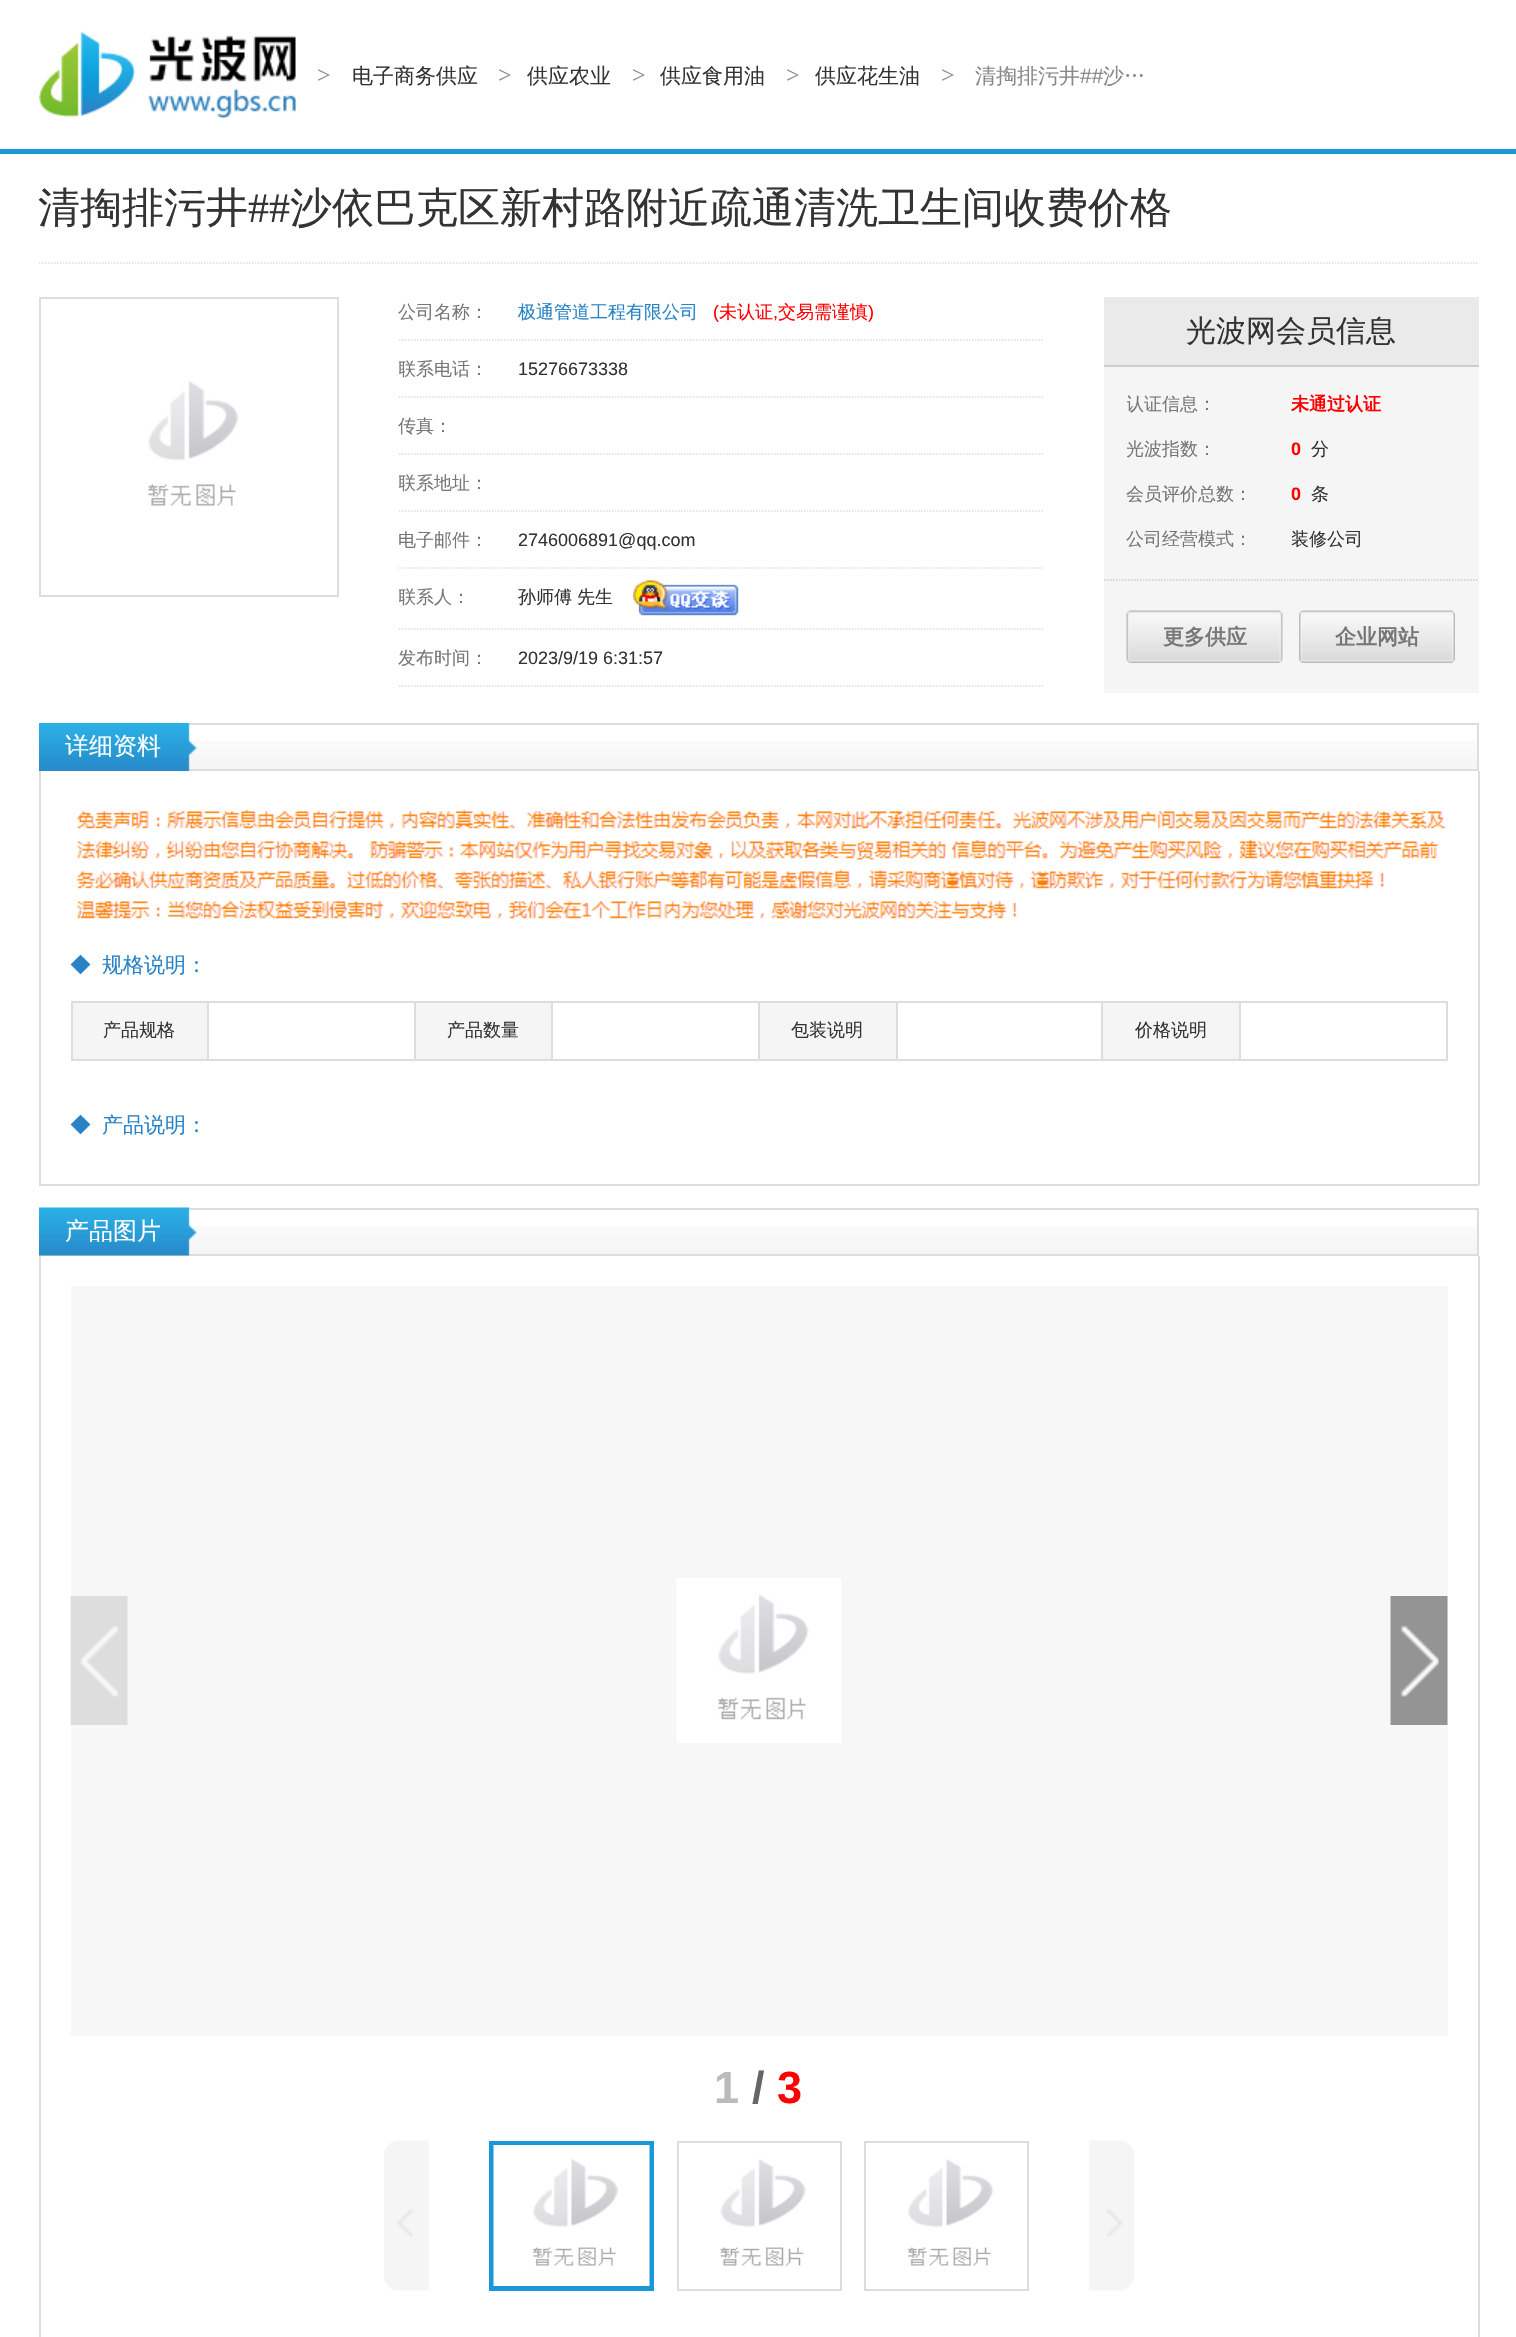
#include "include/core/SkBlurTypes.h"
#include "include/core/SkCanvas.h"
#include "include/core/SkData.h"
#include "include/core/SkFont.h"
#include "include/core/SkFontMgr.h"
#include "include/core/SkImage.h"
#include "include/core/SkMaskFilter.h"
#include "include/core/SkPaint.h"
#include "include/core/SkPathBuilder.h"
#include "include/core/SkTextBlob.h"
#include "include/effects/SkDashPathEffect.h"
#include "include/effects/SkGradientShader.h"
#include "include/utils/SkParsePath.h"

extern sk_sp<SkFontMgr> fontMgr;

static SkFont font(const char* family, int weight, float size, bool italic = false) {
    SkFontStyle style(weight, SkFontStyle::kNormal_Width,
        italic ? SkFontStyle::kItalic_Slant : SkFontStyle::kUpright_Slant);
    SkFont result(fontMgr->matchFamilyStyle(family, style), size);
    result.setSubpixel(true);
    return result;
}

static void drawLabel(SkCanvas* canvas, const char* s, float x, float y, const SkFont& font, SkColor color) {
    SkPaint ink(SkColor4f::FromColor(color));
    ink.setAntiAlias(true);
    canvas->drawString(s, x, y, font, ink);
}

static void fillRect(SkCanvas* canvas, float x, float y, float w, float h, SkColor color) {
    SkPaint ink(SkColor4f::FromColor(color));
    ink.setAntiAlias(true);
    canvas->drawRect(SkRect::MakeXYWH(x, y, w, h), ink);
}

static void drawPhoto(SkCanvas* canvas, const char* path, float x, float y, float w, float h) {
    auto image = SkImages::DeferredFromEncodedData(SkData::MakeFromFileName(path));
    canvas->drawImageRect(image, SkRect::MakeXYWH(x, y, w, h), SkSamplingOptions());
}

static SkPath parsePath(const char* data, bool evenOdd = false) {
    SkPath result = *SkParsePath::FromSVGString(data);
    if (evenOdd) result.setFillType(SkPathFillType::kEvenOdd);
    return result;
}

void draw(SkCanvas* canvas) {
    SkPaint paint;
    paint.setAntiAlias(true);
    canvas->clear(0xFFFFFFFF);
    fillRect(canvas, 0, 149, 1516, 5, 0xFF1A97DA);
    drawPhoto(canvas, "assets/img1.png", 39, 31, 257, 88);
    SkFont font1 = font("Liberation Serif", 400, 24);
    drawLabel(canvas, ">", 317, 83, font1, 0xFF888888);
    SkFont font2 = font("WenQuanYi Zen Hei", 500, 21);
    drawLabel(canvas, "电子商务供应", 352, 83, font2, 0xFF333333);
    drawLabel(canvas, ">", 498, 83, font1, 0xFF888888);
    drawLabel(canvas, "供应农业", 527, 83, font2, 0xFF333333);
    drawLabel(canvas, ">", 632, 83, font1, 0xFF888888);
    drawLabel(canvas, "供应食用油", 660, 83, font2, 0xFF333333);
    drawLabel(canvas, ">", 786, 83, font1, 0xFF888888);
    drawLabel(canvas, "供应花生油", 815, 83, font2, 0xFF333333);
    drawLabel(canvas, ">", 941, 83, font1, 0xFF888888);
    drawLabel(canvas, "清掏排污井", 975, 83, font2, 0xFF888888);
    SkFont font3 = font("Liberation Sans", 400, 21);
    drawLabel(canvas, "##", 1080, 83, font3, 0xFF888888);
    drawLabel(canvas, "沙…", 1103, 83, font2, 0xFF888888);
    paint.setStroke(true);
    paint.setStrokeWidth(1.5f);
    paint.setColor(0xFFDDDDDD);
    paint.setPathEffect(SkDashPathEffect::Make({{1.5f, 1.5f}}, 0));
    canvas->drawPath(parsePath("M39 263H1479"), paint);
    paint.setPathEffect(nullptr);
    SkFont font4 = font("WenQuanYi Zen Hei", 500, 42);
    drawLabel(canvas, "清掏排污井", 38, 222, font4, 0xFF333333);
    SkFont font5 = font("Liberation Serif", 400, 42);
    drawLabel(canvas, "##", 248, 222, font5, 0xFF333333);
    drawLabel(canvas, "沙依巴克区新村路附近疏通清洗卫生间收费价格", 290, 222, font4, 0xFF333333);
    paint.setStrokeWidth(2);
    canvas->drawRect(SkRect::MakeXYWH(40, 298, 298, 298), paint);
    drawPhoto(canvas, "assets/img2.png", 148, 381, 91, 125);
    paint.setStrokeWidth(1.5f);
    paint.setPathEffect(SkDashPathEffect::Make({{1.5f, 1.5f}}, 0));
    canvas->drawPath(parsePath("M399 340H1044"), paint);
    paint.setPathEffect(nullptr);
    SkFont font6 = font("WenQuanYi Zen Hei", 500, 18);
    drawLabel(canvas, "公司名称：", 398, 318, font6, 0xFF777777);
    drawLabel(canvas, "极通管道工程有限公司", 518, 318, font6, 0xFF2783C6);
    SkFont font7 = font("Liberation Sans", 400, 18);
    drawLabel(canvas, "(", 713, 318, font7, 0xFFFF0000);
    drawLabel(canvas, "未认证", 719, 318, font6, 0xFFFF0000);
    drawLabel(canvas, ",", 773, 318, font7, 0xFFFF0000);
    drawLabel(canvas, "交易需谨慎", 778, 318, font6, 0xFFFF0000);
    drawLabel(canvas, ")", 868, 318, font7, 0xFFFF0000);
    paint.setPathEffect(SkDashPathEffect::Make({{1.5f, 1.5f}}, 0));
    canvas->drawPath(parsePath("M399 397H1044"), paint);
    paint.setPathEffect(nullptr);
    canvas->save();
    canvas->clipRect(SkRect::MakeXYWH(399, 297, 645, 404));
    drawLabel(canvas, "联系电话：", 398, 375, font6, 0xFF777777);
    canvas->restore();
    drawLabel(canvas, "15276673338", 518, 375, font7, 0xFF333333);
    paint.setPathEffect(SkDashPathEffect::Make({{1.5f, 1.5f}}, 0));
    canvas->drawPath(parsePath("M399 454H1044"), paint);
    paint.setPathEffect(nullptr);
    drawLabel(canvas, "传真：", 398, 432, font6, 0xFF777777);
    paint.setPathEffect(SkDashPathEffect::Make({{1.5f, 1.5f}}, 0));
    canvas->drawPath(parsePath("M399 511H1044"), paint);
    paint.setPathEffect(nullptr);
    canvas->save();
    canvas->clipRect(SkRect::MakeXYWH(399, 297, 645, 404));
    drawLabel(canvas, "联系地址：", 398, 489, font6, 0xFF777777);
    canvas->restore();
    paint.setPathEffect(SkDashPathEffect::Make({{1.5f, 1.5f}}, 0));
    canvas->drawPath(parsePath("M399 568H1044"), paint);
    paint.setPathEffect(nullptr);
    drawLabel(canvas, "电子邮件：", 398, 546, font6, 0xFF777777);
    drawLabel(canvas, "2746006891@qq.com", 518, 546, font7, 0xFF333333);
    paint.setPathEffect(SkDashPathEffect::Make({{1.5f, 1.5f}}, 0));
    canvas->drawPath(parsePath("M399 629H1044"), paint);
    paint.setPathEffect(nullptr);
    canvas->save();
    canvas->clipRect(SkRect::MakeXYWH(399, 297, 645, 404));
    drawLabel(canvas, "联系人：", 398, 603, font6, 0xFF777777);
    canvas->restore();
    drawLabel(canvas, "孙师傅", 518, 603, font6, 0xFF333333);
    drawLabel(canvas, "先生", 577, 603, font6, 0xFF333333);
    drawPhoto(canvas, "assets/img3.png", 633, 580, 106, 36);
    paint.setPathEffect(SkDashPathEffect::Make({{1.5f, 1.5f}}, 0));
    canvas->drawPath(parsePath("M399 686H1044"), paint);
    paint.setPathEffect(nullptr);
    drawLabel(canvas, "发布时间：", 398, 664, font6, 0xFF777777);
    drawLabel(canvas, "2023/9/19 6:31:57", 518, 664, font7, 0xFF333333);
    fillRect(canvas, 1104, 367, 375, 326, 0xFFF5F5F5);
    fillRect(canvas, 1104, 297, 375, 68, 0xFFEAEAEA);
    fillRect(canvas, 1104, 365, 375, 2, 0xFFCCCCCC);
    SkFont font8 = font("WenQuanYi Zen Hei", 500, 30);
    drawLabel(canvas, "光波网会员信息", 1186, 341, font8, 0xFF333333);
    canvas->save();
    canvas->clipRect(SkRect::MakeXYWH(1127, 389, 165, 30));
    drawLabel(canvas, "认证信息：", 1126, 410, font6, 0xFF777777);
    canvas->restore();
    SkFont font9 = font("WenQuanYi Zen Hei", 700, 18);
    drawLabel(canvas, "未通过认证", 1291, 410, font9, 0xFFFF0000);
    canvas->save();
    canvas->clipRect(SkRect::MakeXYWH(1127, 434, 165, 30));
    drawLabel(canvas, "光波指数：", 1126, 455, font6, 0xFF777777);
    canvas->restore();
    SkFont font10 = font("Liberation Sans", 700, 18);
    drawLabel(canvas, "0", 1291, 455, font10, 0xFFFF0000);
    drawLabel(canvas, "分", 1311, 455, font6, 0xFF333333);
    drawLabel(canvas, "会员评价总数：", 1126, 500, font6, 0xFF777777);
    drawLabel(canvas, "0", 1291, 500, font10, 0xFFFF0000);
    drawLabel(canvas, "条", 1311, 500, font6, 0xFF333333);
    drawLabel(canvas, "公司经营模式：", 1126, 545, font6, 0xFF777777);
    drawLabel(canvas, "装修公司", 1291, 545, font6, 0xFF333333);
    paint.setColor(0xFFCCCCCC);
    paint.setPathEffect(SkDashPathEffect::Make({{1.5f, 1.5f}}, 0));
    canvas->drawPath(parsePath("M1104 580H1479"), paint);
    paint.setPathEffect(nullptr);
    drawPhoto(canvas, "assets/img4.png", 1126, 610, 157, 53);
    SkFont font11 = font("WenQuanYi Zen Hei", 700, 21);
    drawLabel(canvas, "更多供应", 1163, 644, font11, 0xFF777777);
    drawPhoto(canvas, "assets/img5.png", 1299, 610, 156, 53);
    drawLabel(canvas, "企业网站", 1335, 644, font11, 0xFF777777);
    drawPhoto(canvas, "assets/img6.png", 188, 741, 1289, 28);
    paint.setStrokeWidth(2);
    paint.setColor(0xFFDDDDDD);
    canvas->drawRect(SkRect::MakeXYWH(40, 724, 1438, 46), paint);
    drawPhoto(canvas, "assets/img7.png", 39, 723, 158, 48);
    SkFont font12 = font("WenQuanYi Zen Hei", 500, 24);
    drawLabel(canvas, "详细资料", 65, 754, font12, 0xFFFFFFFF);
    fillRect(canvas, 1478, 771, 2, 414, 0xFFDDDDDD);
    fillRect(canvas, 39, 1184, 1440, 2, 0xFFDDDDDD);
    fillRect(canvas, 39, 771, 2, 414, 0xFFDDDDDD);
    drawPhoto(canvas, "assets/img8.png", 76, 809, 1370, 110);
    drawLabel(canvas, "◆", 70, 972, font2, 0xFF2783C6);
    drawLabel(canvas, "规格说明：", 102, 972, font2, 0xFF2783C6);
    fillRect(canvas, 71, 1001, 1377, 2, 0xFFDDDDDD);
    fillRect(canvas, 71, 1001, 2, 60, 0xFFDDDDDD);
    fillRect(canvas, 73, 1003, 134, 56, 0xFFF5F5F5);
    fillRect(canvas, 1446, 1001, 2, 60, 0xFFDDDDDD);
    fillRect(canvas, 1239, 1059, 209, 2, 0xFFDDDDDD);
    fillRect(canvas, 1239, 1001, 2, 60, 0xFFDDDDDD);
    fillRect(canvas, 1101, 1059, 140, 2, 0xFFDDDDDD);
    fillRect(canvas, 1101, 1001, 2, 60, 0xFFDDDDDD);
    fillRect(canvas, 896, 1059, 207, 2, 0xFFDDDDDD);
    fillRect(canvas, 896, 1001, 2, 60, 0xFFDDDDDD);
    fillRect(canvas, 758, 1059, 139, 2, 0xFFDDDDDD);
    fillRect(canvas, 758, 1001, 2, 60, 0xFFDDDDDD);
    fillRect(canvas, 551, 1059, 208, 2, 0xFFDDDDDD);
    fillRect(canvas, 551, 1001, 2, 60, 0xFFDDDDDD);
    fillRect(canvas, 414, 1059, 138, 2, 0xFFDDDDDD);
    fillRect(canvas, 414, 1001, 2, 60, 0xFFDDDDDD);
    fillRect(canvas, 207, 1059, 209, 2, 0xFFDDDDDD);
    fillRect(canvas, 207, 1001, 2, 60, 0xFFDDDDDD);
    fillRect(canvas, 71, 1059, 138, 2, 0xFFDDDDDD);
    drawLabel(canvas, "产品规格", 103, 1036, font6, 0xFF333333);
    fillRect(canvas, 416, 1003, 135, 56, 0xFFF5F5F5);
    drawLabel(canvas, "产品数量", 447, 1036, font6, 0xFF333333);
    fillRect(canvas, 760, 1003, 136, 56, 0xFFF5F5F5);
    drawLabel(canvas, "包装说明", 791, 1036, font6, 0xFF333333);
    fillRect(canvas, 1103, 1003, 136, 56, 0xFFF5F5F5);
    drawLabel(canvas, "价格说明", 1135, 1036, font6, 0xFF333333);
    drawLabel(canvas, "◆", 70, 1132, font2, 0xFF2783C6);
    drawLabel(canvas, "产品说明：", 102, 1132, font2, 0xFF2783C6);
    drawPhoto(canvas, "assets/img9.png", 188, 1226, 1289, 28);
    canvas->drawRect(SkRect::MakeXYWH(40, 1209, 1438, 46), paint);
    drawPhoto(canvas, "assets/img10.png", 39, 1207, 158, 49);
    drawLabel(canvas, "产品图片", 65, 1239, font12, 0xFFFFFFFF);
    fillRect(canvas, 1478, 1256, 2, 1081, 0xFFDDDDDD);
    fillRect(canvas, 39, 1256, 2, 1081, 0xFFDDDDDD);
    fillRect(canvas, 71, 1286, 1377, 750, 0xFFF7F7F7);
    drawPhoto(canvas, "assets/img11.png", 676, 1578, 166, 165);
    drawPhoto(canvas, "assets/img12.png", 70, 1596, 58, 129);
    drawPhoto(canvas, "assets/img13.png", 1390, 1596, 58, 129);
    SkFont font13 = font("Liberation Sans", 700, 45);
    drawLabel(canvas, "1", 714, 2103, font13, 0xFFBBBBBB);
    drawLabel(canvas, "/", 752, 2103, font13, 0xFF666666);
    drawLabel(canvas, "3", 777, 2103, font13, 0xFFFF0000);
    drawPhoto(canvas, "assets/img14.png", 384, 2140, 45, 151);
    fillRect(canvas, 489, 2141, 165, 150, 0xFF1A97DA);
    drawPhoto(canvas, "assets/img15.png", 493, 2145, 157, 141);
    canvas->drawRect(SkRect::MakeXYWH(678, 2142, 163, 148), paint);
    drawPhoto(canvas, "assets/img16.png", 720, 2159, 86, 107);
    canvas->drawRect(SkRect::MakeXYWH(865, 2142, 163, 148), paint);
    drawPhoto(canvas, "assets/img17.png", 908, 2159, 86, 107);
    drawPhoto(canvas, "assets/img18.png", 1089, 2140, 45, 151);
}
